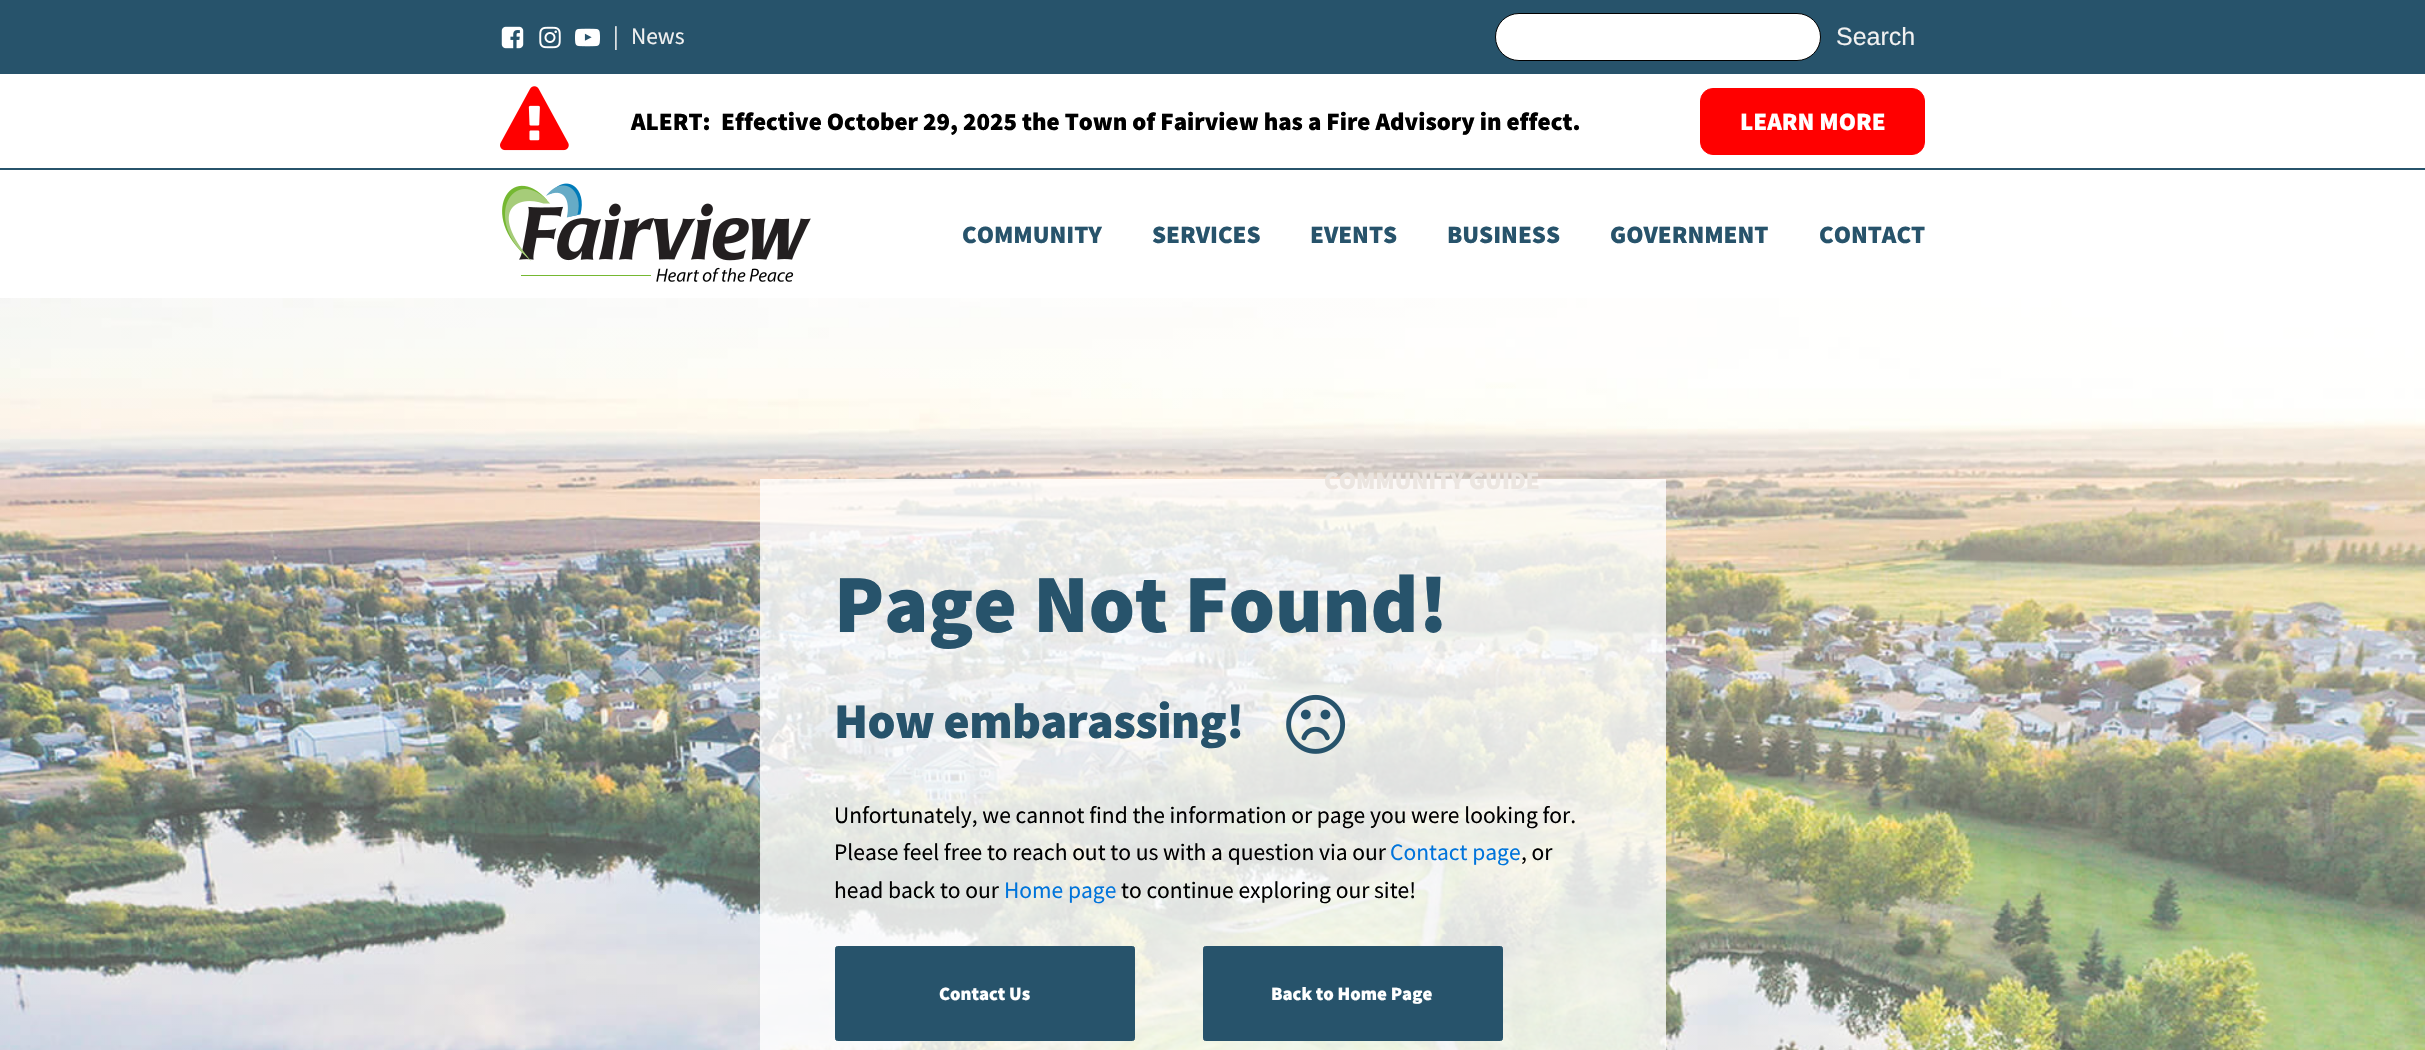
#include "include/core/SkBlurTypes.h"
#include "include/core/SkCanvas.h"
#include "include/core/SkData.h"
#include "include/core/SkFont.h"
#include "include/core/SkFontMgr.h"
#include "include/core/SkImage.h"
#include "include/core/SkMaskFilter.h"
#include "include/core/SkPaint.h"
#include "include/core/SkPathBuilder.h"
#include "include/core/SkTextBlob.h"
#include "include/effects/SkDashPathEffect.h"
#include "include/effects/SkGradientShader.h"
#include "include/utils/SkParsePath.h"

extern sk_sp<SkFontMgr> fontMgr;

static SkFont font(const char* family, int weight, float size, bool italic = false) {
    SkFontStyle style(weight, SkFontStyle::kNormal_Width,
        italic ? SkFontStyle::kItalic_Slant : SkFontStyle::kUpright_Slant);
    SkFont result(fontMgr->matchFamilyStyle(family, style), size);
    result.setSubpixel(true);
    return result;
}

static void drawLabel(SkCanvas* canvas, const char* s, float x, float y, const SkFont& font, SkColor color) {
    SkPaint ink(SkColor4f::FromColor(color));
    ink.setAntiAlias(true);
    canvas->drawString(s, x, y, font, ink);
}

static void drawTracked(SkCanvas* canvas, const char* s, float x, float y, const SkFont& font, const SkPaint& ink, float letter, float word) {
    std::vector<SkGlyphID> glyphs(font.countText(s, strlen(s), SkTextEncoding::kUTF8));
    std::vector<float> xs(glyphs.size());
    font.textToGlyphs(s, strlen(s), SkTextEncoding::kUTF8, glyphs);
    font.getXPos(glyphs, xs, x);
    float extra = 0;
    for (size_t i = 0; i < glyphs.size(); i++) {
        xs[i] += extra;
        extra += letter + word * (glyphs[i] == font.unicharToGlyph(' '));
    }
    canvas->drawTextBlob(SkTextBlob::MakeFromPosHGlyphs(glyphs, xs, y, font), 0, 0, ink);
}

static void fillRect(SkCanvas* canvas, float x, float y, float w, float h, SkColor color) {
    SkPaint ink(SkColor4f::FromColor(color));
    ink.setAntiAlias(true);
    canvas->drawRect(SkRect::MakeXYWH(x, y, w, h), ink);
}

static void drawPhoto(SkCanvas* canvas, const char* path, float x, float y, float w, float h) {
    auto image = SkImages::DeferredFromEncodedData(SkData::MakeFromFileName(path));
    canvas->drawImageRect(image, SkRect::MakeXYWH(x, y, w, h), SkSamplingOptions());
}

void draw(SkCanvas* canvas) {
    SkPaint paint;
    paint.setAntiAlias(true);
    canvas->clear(0xFFFFFFFF);
    fillRect(canvas, 0, 0, 2425, 74, 0xFF27536B);
    drawPhoto(canvas, "assets/img1.png", 501, 26, 23, 23);
    drawPhoto(canvas, "assets/img2.png", 539, 26, 22, 23);
    drawPhoto(canvas, "assets/img3.png", 575, 28, 25, 19);
    SkFont font1 = font("Source Sans Pro", 400, 23.5f);
    drawLabel(canvas, "|", 613, 44, font1, 0xFFF1F1F1);
    drawLabel(canvas, "News", 631, 44, font1, 0xFFF1F1F1);
    paint.setColor(0xFFFFFFFF);
    canvas->drawRoundRect(SkRect::MakeXYWH(1495.5f, 13.5f, 325, 47), 23.5f, 23.5f, paint);
    paint.setStroke(true);
    paint.setStrokeWidth(1);
    paint.setColor(0xFF000000);
    canvas->drawRoundRect(SkRect::MakeXYWH(1495.5f, 13.5f, 325, 47), 23.5f, 23.5f, paint);
    SkFont font2 = font("Liberation Sans", 400, 25);
    drawLabel(canvas, "Search", 1836, 45, font2, 0xFFF1F1F1);
    fillRect(canvas, 0, 168, 2425, 2, 0xFF27536B);
    drawPhoto(canvas, "assets/img4.png", 500, 86, 69, 65);
    SkFont font3 = font("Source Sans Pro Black", 900, 25);
    drawLabel(canvas, "ALERT:", 631, 130, font3, 0xFF000000);
    drawLabel(canvas, "Effective October 29, 2025 the Town of Fairview has a Fire Advisory in effect.", 721, 130, font3, 0xFF000000);
    paint.setStroke(false);
    paint.setColor(0xFFFF0000);
    canvas->drawRoundRect(SkRect::MakeXYWH(1700.5f, 88.5f, 224, 66), 12.5f, 12.5f, paint);
    paint.setStroke(true);
    canvas->drawRoundRect(SkRect::MakeXYWH(1700.5f, 88.5f, 224, 66), 12.5f, 12.5f, paint);
    drawLabel(canvas, "LEARN MORE", 1740, 130, font3, 0xFFFFFFFF);
    drawPhoto(canvas, "assets/img5.png", 502, 183, 309, 99);
    drawLabel(canvas, "COMMUNITY", 962, 243, font3, 0xFF27536B);
    drawLabel(canvas, "SERVICES", 1152, 243, font3, 0xFF27536B);
    drawLabel(canvas, "EVENTS", 1310, 243, font3, 0xFF27536B);
    drawPhoto(canvas, "assets/img6.png", 0, 298, 2425, 752);
    fillRect(canvas, 760, 479, 906, 571, 0xCCFFFFFF);
    drawLabel(canvas, "COMMUNITY GUIDE", 1324, 489, font3, 0xFFEBE5E0);
    drawLabel(canvas, "BUSINESS", 1447, 243, font3, 0xFF27536B);
    drawLabel(canvas, "GOVERNMENT", 1610, 243, font3, 0xFF27536B);
    drawLabel(canvas, "CONTACT", 1819, 243, font3, 0xFF27536B);
    SkFont font4 = font("Source Sans Pro Black", 900, 82.5f);
    drawLabel(canvas, "Page Not Found!", 834, 632, font4, 0xFF27536B);
    SkFont font5 = font("Source Sans Pro Black", 900, 50);
    paint.setStroke(false);
    paint.setColor(0xFF27536B);
    drawTracked(canvas, "How embarassing!", 834, 738, font5, paint, -0.6f, 0);
    drawPhoto(canvas, "assets/img7.png", 1286, 694, 60, 60);
    drawLabel(canvas, "Unfortunately, we cannot find the information or page you were looking for.", 834, 823, font1, 0xFF000000);
    drawLabel(canvas, "Please feel free to reach out to us with a question via our", 834, 860, font1, 0xFF000000);
    drawLabel(canvas, "Contact page", 1390, 860, font1, 0xFF0074DB);
    drawLabel(canvas, ", or", 1521, 860, font1, 0xFF000000);
    drawLabel(canvas, "head back to our", 834, 898, font1, 0xFF000000);
    drawLabel(canvas, "Home page", 1004, 898, font1, 0xFF0074DB);
    drawLabel(canvas, "to continue exploring our site!", 1121, 898, font1, 0xFF000000);
    canvas->drawRoundRect(SkRect::MakeXYWH(835.5f, 946.5f, 299, 94), 2, 2, paint);
    paint.setStroke(true);
    canvas->drawRoundRect(SkRect::MakeXYWH(835.5f, 946.5f, 299, 94), 2, 2, paint);
    SkFont font6 = font("Source Sans Pro Black", 900, 18.75f);
    drawLabel(canvas, "Contact Us", 939, 1000, font6, 0xFFFFFFFF);
    paint.setStroke(false);
    canvas->drawRoundRect(SkRect::MakeXYWH(1203.5f, 946.5f, 299, 94), 2, 2, paint);
    paint.setStroke(true);
    canvas->drawRoundRect(SkRect::MakeXYWH(1203.5f, 946.5f, 299, 94), 2, 2, paint);
    drawLabel(canvas, "Back to Home Page", 1271, 1000, font6, 0xFFFFFFFF);
}
